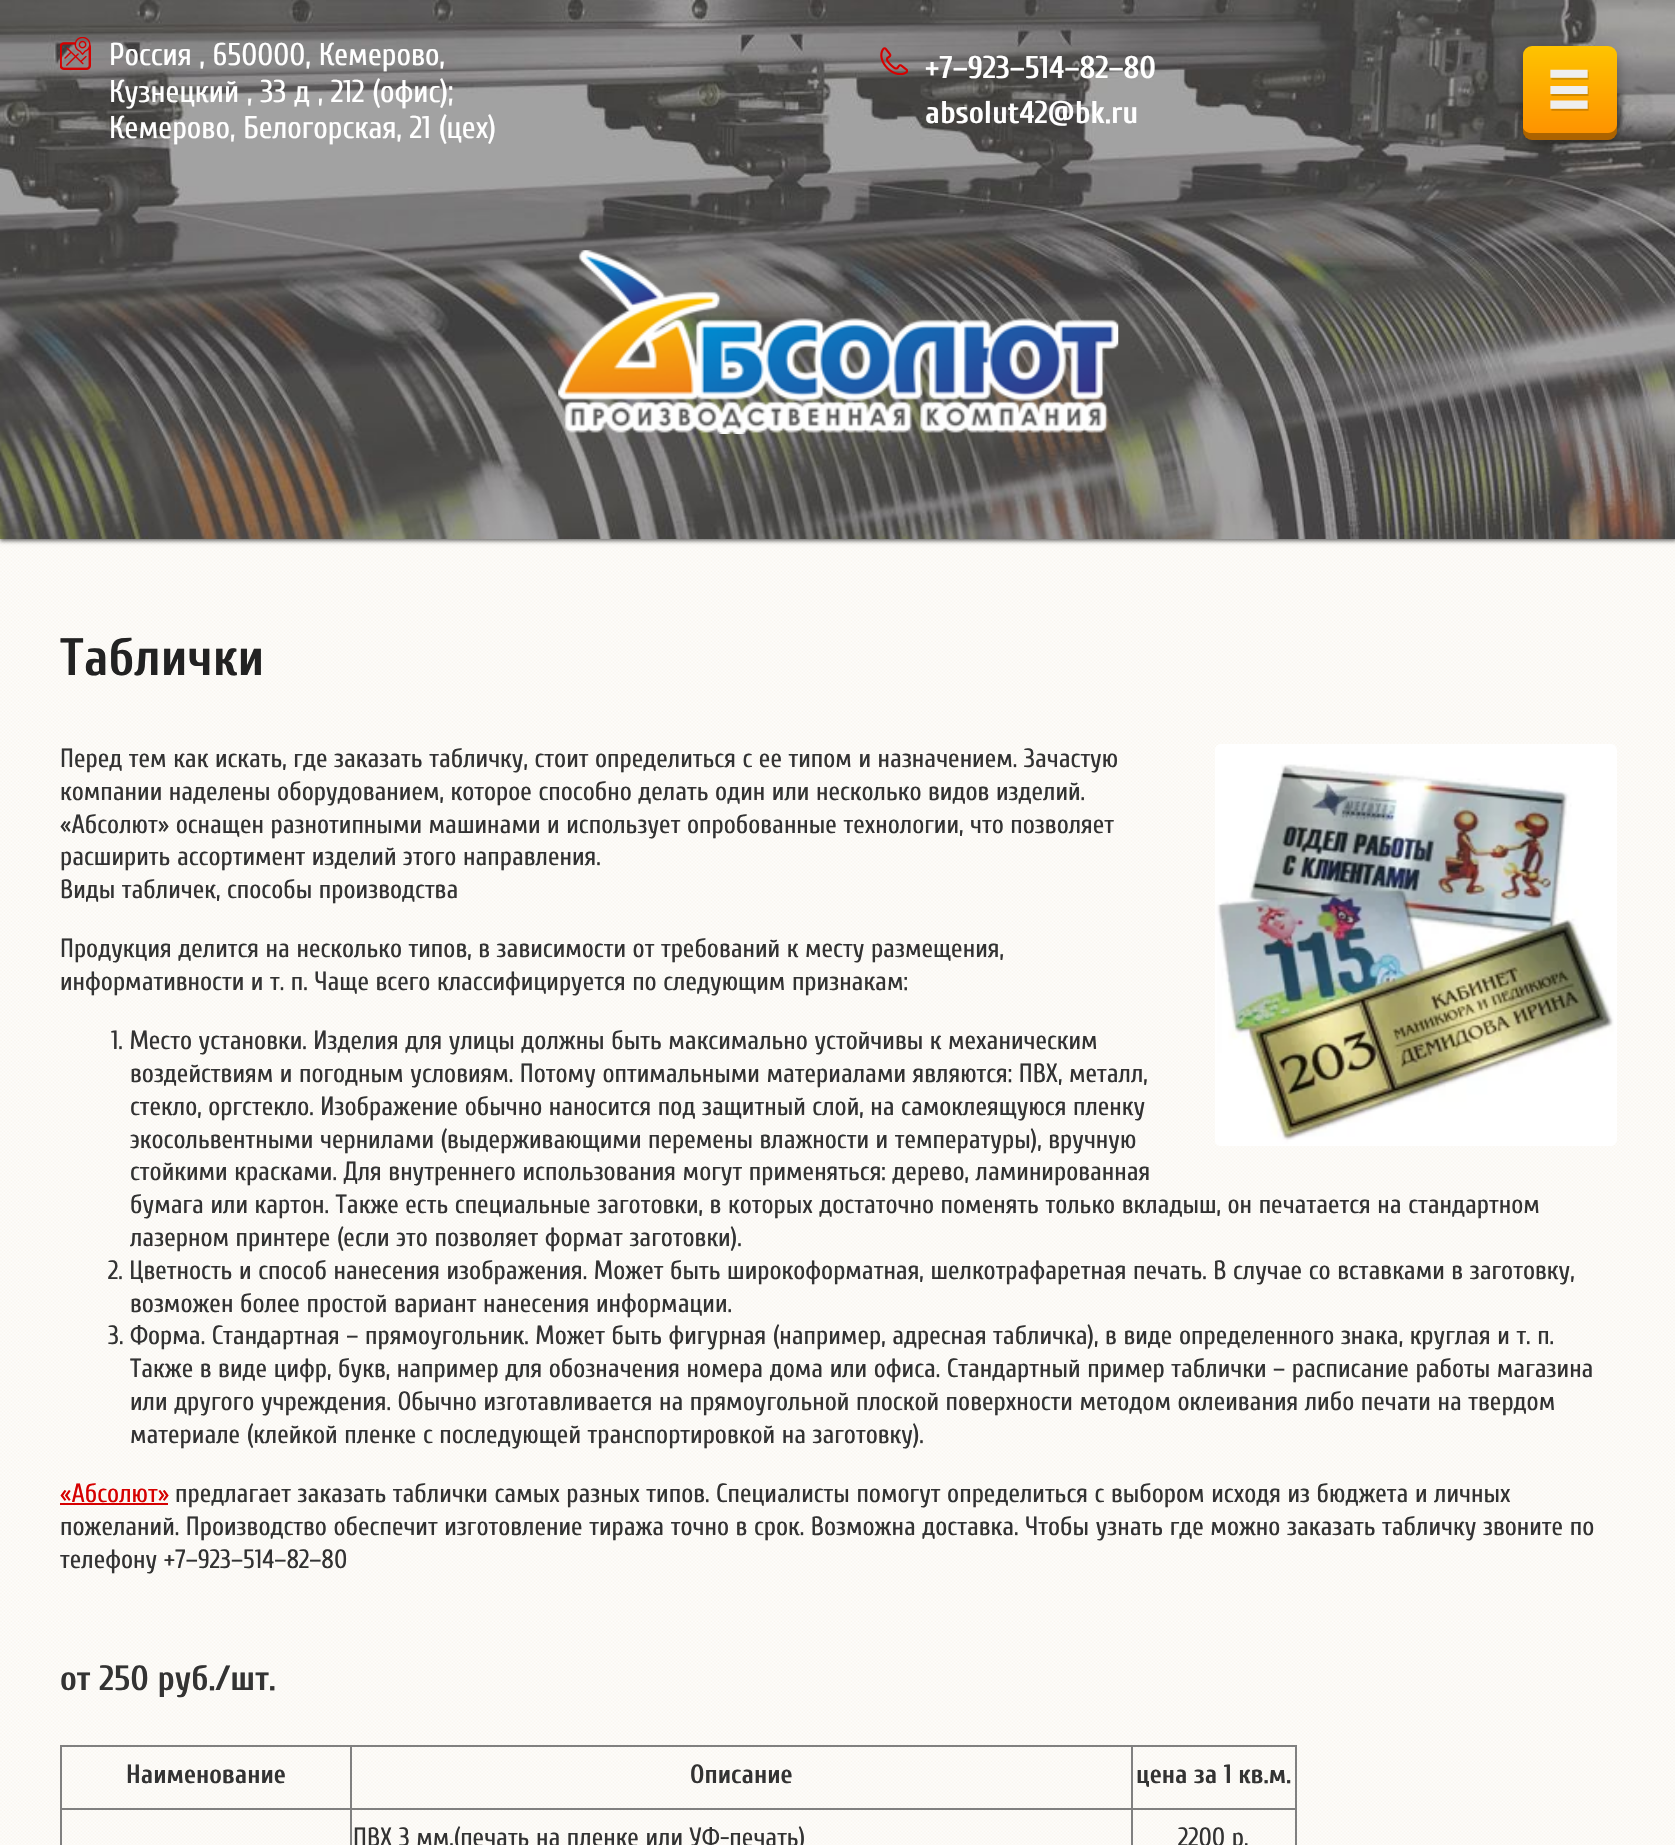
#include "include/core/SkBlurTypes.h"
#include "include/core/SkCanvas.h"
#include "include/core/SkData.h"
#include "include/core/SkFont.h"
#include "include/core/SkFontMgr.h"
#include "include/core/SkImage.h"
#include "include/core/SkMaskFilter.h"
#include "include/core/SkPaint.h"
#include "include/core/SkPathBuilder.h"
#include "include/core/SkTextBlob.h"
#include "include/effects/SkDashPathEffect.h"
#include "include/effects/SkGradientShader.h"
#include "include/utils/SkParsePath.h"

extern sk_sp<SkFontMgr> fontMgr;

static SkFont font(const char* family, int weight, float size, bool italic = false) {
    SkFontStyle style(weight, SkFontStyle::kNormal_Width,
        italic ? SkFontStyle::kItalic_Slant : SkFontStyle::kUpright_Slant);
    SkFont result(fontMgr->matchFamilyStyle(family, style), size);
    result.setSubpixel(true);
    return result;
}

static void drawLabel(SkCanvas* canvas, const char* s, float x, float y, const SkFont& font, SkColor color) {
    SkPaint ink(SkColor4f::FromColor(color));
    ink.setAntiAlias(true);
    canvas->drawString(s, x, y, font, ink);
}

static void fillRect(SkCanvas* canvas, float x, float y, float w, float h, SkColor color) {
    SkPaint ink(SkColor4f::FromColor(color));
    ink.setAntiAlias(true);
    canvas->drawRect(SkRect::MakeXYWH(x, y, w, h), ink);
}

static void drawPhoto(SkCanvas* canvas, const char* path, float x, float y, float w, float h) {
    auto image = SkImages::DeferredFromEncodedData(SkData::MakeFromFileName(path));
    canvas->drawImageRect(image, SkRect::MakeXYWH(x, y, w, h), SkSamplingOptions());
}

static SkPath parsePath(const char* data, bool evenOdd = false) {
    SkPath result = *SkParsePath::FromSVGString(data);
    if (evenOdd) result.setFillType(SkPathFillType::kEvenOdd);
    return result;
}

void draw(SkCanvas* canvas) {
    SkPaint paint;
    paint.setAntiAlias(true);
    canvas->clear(0xFFFFFFFF);
    drawPhoto(canvas, "assets/img1.png", 0, 539, 1675, 1306);
    paint.setColor(0x8F000000);
    paint.setMaskFilter(SkMaskFilter::MakeBlur(kNormal_SkBlurStyle, 2));
    canvas->drawRect(SkRect::MakeXYWH(0, 2, 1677, 539), paint);
    paint.setMaskFilter(nullptr);
    drawPhoto(canvas, "assets/img2.png", 0, 0, 1675, 539);
    drawPhoto(canvas, "assets/img3.png", 60, 37, 31, 33);
    SkFont font1 = font("cuprum", 400, 31.5f);
    drawLabel(canvas, "Россия , 650000, Кемерово,", 109, 65, font1, 0xFFFFFFFF);
    drawLabel(canvas, "Кузнецкий , 33 д , 212 (офис);", 109, 102, font1, 0xFFFFFFFF);
    drawLabel(canvas, "Кемерово, Белогорская, 21 (цех)", 109, 138, font1, 0xFFFFFFFF);
    drawPhoto(canvas, "assets/img4.png", 880, 47, 28, 28);
    SkFont font2 = font("cuprum", 700, 31.5f);
    drawLabel(canvas, "+7–923–514–82–80", 925, 78, font2, 0xFFFFFFFF);
    drawLabel(canvas, "absolut42@bk.ru", 925, 123, font2, 0xFFFFFFFF);
    paint.setColor(0x57000000);
    paint.setMaskFilter(SkMaskFilter::MakeBlur(kNormal_SkBlurStyle, 7));
    canvas->drawRoundRect(SkRect::MakeXYWH(1523, 53, 94, 94), 9, 9, paint);
    paint.setMaskFilter(nullptr);
    {
        const SkColor colors[] = {0xFFFEC400, 0xFFFE8F00};
        const float stops[] = {0, 1};
        const SkPoint ends[] = {{1570, 45}, {1570, 140}};
        paint.setShader(SkGradientShader::MakeLinear(ends, colors, stops, 2, SkTileMode::kClamp));
        paint.setAlpha(255);
    }
    canvas->drawRoundRect(SkRect::MakeXYWH(1523, 46, 94, 94), 9, 9, paint);
    paint.setShader(nullptr);
    paint.setColor(0x52000000);
    canvas->drawPath(parsePath("M1523 128V131C1523 136 1527 140 1532 140H1608C1613 140 1617 136 1617 131V124C1617 129 1613 133 1608 133H1531C1528 133 1524 131 1523 128Z"), paint);
    drawPhoto(canvas, "assets/img5.png", 1550, 69, 39, 42);
    drawPhoto(canvas, "assets/img6.png", 558, 250, 561, 184);
    SkFont font3 = font("cuprum", 700, 52.5f);
    drawLabel(canvas, "Таблички", 60, 675, font3, 0xFF222222);
    drawPhoto(canvas, "assets/img7.png", 1215, 744, 402, 402);
    SkFont font4 = font("cuprum", 400, 26.25f);
    drawLabel(canvas, "Перед тем как искать, где заказать табличку, стоит определиться с ее типом и назначением. Зачастую", 60, 767, font4, 0xFF333333);
    drawLabel(canvas, "компании наделены оборудованием, которое способно делать один или несколько видов изделий.", 60, 800, font4, 0xFF333333);
    drawLabel(canvas, "«Абсолют» оснащен разнотипными машинами и использует опробованные технологии, что позволяет", 60, 833, font4, 0xFF333333);
    drawLabel(canvas, "расширить ассортимент изделий этого направления.", 60, 865, font4, 0xFF333333);
    drawLabel(canvas, "Виды табличек, способы производства", 60, 898, font4, 0xFF333333);
    drawLabel(canvas, "Продукция делится на несколько типов, в зависимости от требований к месту размещения,", 60, 957, font4, 0xFF333333);
    drawLabel(canvas, "информативности и т. п. Чаще всего классифицируется по следующим признакам:", 60, 990, font4, 0xFF333333);
    drawLabel(canvas, "1. Место установки. Изделия для улицы должны быть максимально устойчивы к механическим", 111, 1049, font4, 0xFF333333);
    drawLabel(canvas, "воздействиям и погодным условиям. Потому оптимальными материалами являются: ПВХ, металл,", 130, 1082, font4, 0xFF333333);
    drawLabel(canvas, "стекло, оргстекло. Изображение обычно наносится под защитный слой, на самоклеящуюся пленку", 130, 1115, font4, 0xFF333333);
    drawLabel(canvas, "экосольвентными чернилами (выдерживающими перемены влажности и температуры), вручную", 130, 1148, font4, 0xFF333333);
    drawLabel(canvas, "стойкими красками. Для внутреннего использования могут применяться: дерево, ламинированная", 130, 1180, font4, 0xFF333333);
    drawLabel(canvas, "бумага или картон. Также есть специальные заготовки, в которых достаточно поменять только вкладыш, он печатается на стандартном", 130, 1213, font4, 0xFF333333);
    drawLabel(canvas, "лазерном принтере (если это позволяет формат заготовки).", 130, 1246, font4, 0xFF333333);
    drawLabel(canvas, "2. Цветность и способ нанесения изображения. Может быть широкоформатная, шелкотрафаретная печать. В случае со вставками в заготовку,", 108, 1279, font4, 0xFF333333);
    drawLabel(canvas, "возможен более простой вариант нанесения информации.", 130, 1312, font4, 0xFF333333);
    drawLabel(canvas, "3. Форма. Стандартная – прямоугольник. Может быть фигурная (например, адресная табличка), в виде определенного знака, круглая и т. п.", 108, 1344, font4, 0xFF333333);
    drawLabel(canvas, "Также в виде цифр, букв, например для обозначения номера дома или офиса. Стандартный пример таблички – расписание работы магазина", 130, 1377, font4, 0xFF333333);
    drawLabel(canvas, "или другого учреждения. Обычно изготавливается на прямоугольной плоской поверхности методом оклеивания либо печати на твердом", 130, 1410, font4, 0xFF333333);
    drawLabel(canvas, "материале (клейкой пленке с последующей транспортировкой на заготовку).", 130, 1443, font4, 0xFF333333);
    drawLabel(canvas, "«Абсолют»", 60, 1502, font4, 0xFFD60000);
    fillRect(canvas, 60, 1503, 108, 2, 0xFFD60000);
    drawLabel(canvas, "предлагает заказать таблички самых разных типов. Специалисты помогут определиться с выбором исходя из бюджета и личных", 175, 1502, font4, 0xFF333333);
    drawLabel(canvas, "пожеланий. Производство обеспечит изготовление тиража точно в срок. Возможна доставка. Чтобы узнать где можно заказать табличку звоните по", 60, 1535, font4, 0xFF333333);
    drawLabel(canvas, "телефону +7–923–514–82–80", 60, 1568, font4, 0xFF333333);
    SkFont font5 = font("cuprum", 700, 35);
    drawLabel(canvas, "от 250 руб./шт.", 60, 1690, font5, 0xFF333333);
    fillRect(canvas, 60, 1745, 1237, 2, 0xFF808080);
    fillRect(canvas, 1295, 1745, 2, 100, 0xFF808080);
    fillRect(canvas, 60, 1745, 2, 100, 0xFF808080);
    SkFont font6 = font("cuprum", 700, 26.25f);
    drawLabel(canvas, "Наименование", 126, 1783, font6, 0xFF333333);
    fillRect(canvas, 1131, 1808, 166, 2, 0xFF808080);
    fillRect(canvas, 1131, 1808, 2, 37, 0xFF808080);
    fillRect(canvas, 350, 1808, 782, 2, 0xFF808080);
    fillRect(canvas, 350, 1808, 2, 37, 0xFF808080);
    fillRect(canvas, 60, 1808, 292, 2, 0xFF808080);
    fillRect(canvas, 350, 1745, 2, 65, 0xFF808080);
    drawLabel(canvas, "Описание", 690, 1783, font6, 0xFF333333);
    fillRect(canvas, 1131, 1745, 2, 65, 0xFF808080);
    drawLabel(canvas, "цена за 1 кв.м.", 1136, 1783, font6, 0xFF333333);
    drawLabel(canvas, "ПВХ 3 мм.(печать на пленке или УФ-печать)", 353, 1846, font4, 0xFF333333);
    drawLabel(canvas, "2200 р.", 1178, 1846, font4, 0xFF333333);
}
